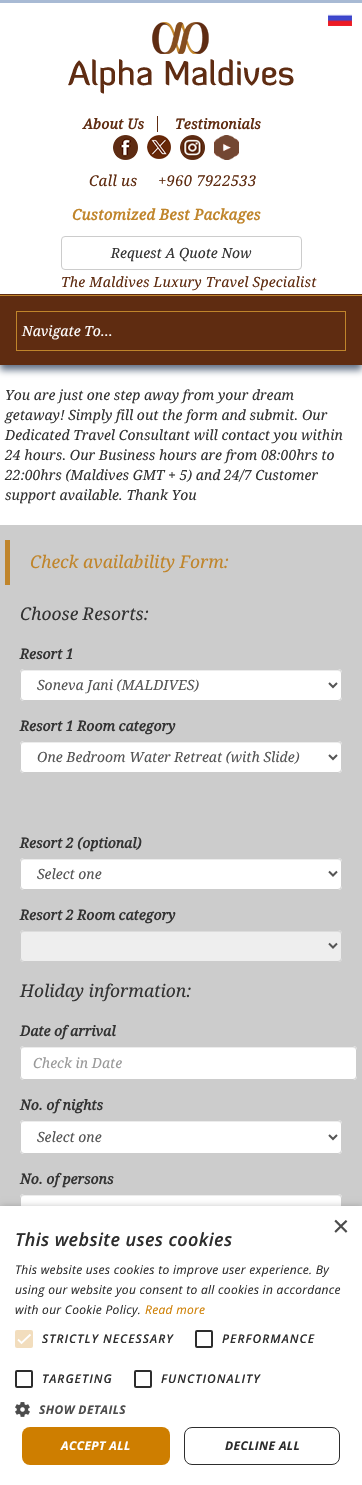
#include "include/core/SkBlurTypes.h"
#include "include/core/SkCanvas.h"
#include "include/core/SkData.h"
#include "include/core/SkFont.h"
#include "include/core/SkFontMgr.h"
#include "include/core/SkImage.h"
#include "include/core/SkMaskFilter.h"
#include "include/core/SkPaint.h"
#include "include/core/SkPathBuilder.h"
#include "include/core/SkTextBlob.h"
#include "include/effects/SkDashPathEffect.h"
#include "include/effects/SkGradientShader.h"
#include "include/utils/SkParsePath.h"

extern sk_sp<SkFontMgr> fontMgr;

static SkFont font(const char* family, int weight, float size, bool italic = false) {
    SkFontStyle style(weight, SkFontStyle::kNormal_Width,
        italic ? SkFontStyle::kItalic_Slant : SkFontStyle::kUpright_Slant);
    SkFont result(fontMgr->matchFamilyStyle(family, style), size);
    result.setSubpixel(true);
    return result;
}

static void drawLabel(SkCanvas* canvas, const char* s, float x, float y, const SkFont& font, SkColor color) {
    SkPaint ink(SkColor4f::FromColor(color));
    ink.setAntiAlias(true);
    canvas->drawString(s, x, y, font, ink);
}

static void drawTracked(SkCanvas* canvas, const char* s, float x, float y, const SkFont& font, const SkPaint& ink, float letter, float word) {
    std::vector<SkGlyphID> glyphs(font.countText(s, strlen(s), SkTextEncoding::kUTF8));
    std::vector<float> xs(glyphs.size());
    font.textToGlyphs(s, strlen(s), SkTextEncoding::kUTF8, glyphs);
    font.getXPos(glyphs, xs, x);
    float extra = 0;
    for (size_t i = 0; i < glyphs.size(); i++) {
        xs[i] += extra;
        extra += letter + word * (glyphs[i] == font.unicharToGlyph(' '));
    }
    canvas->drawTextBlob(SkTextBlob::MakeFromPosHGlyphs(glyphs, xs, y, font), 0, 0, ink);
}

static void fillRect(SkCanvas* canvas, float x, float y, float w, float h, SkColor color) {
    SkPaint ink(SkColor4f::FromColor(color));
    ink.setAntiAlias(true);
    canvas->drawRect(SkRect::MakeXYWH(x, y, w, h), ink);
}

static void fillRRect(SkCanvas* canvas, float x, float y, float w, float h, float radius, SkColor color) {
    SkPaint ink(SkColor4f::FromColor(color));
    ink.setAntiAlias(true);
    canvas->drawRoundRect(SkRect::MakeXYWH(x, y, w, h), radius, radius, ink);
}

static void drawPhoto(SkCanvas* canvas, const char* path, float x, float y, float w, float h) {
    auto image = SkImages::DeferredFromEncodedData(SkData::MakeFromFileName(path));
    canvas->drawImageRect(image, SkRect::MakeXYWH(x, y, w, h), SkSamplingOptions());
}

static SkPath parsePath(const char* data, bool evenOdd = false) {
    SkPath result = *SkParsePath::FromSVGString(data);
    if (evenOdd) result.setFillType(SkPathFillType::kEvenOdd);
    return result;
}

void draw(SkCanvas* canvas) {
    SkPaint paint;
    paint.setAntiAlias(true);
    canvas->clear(0xFFFFFFFF);
    paint.setColor(0xFF627186);
    paint.setMaskFilter(SkMaskFilter::MakeBlur(kNormal_SkBlurStyle, 3.5f));
    canvas->drawRect(SkRect::MakeXYWH(0, 5, 362, 365), paint);
    paint.setMaskFilter(nullptr);
    fillRect(canvas, 0, 296, 362, 69, 0xFF5F2C11);
    fillRect(canvas, 0, 3, 362, 291, 0xFFFFFFFF);
    fillRect(canvas, 0, 0, 362, 3, 0xFFA8BAD4);
    fillRect(canvas, 0, 294, 362, 1, 0xFF5F2C11);
    drawPhoto(canvas, "assets/img1.png", 68, 22, 226, 72);
    SkFont font1 = font("Droid Serif", 700, 14, true);
    paint.setColor(0xFF5F2C11);
    drawTracked(canvas, "About Us", 83, 129, font1, paint, 0.2f, 0);
    fillRect(canvas, 157, 116, 1, 16, 0xFF5F2C11);
    drawTracked(canvas, "Testimonials", 175, 129, font1, paint, 0.2f, 0);
    drawPhoto(canvas, "assets/img2.png", 113, 135, 25, 25);
    drawPhoto(canvas, "assets/img3.png", 147, 135, 24, 24);
    drawPhoto(canvas, "assets/img4.png", 180, 135, 25, 25);
    drawPhoto(canvas, "assets/img5.png", 214, 135, 25, 25);
    SkFont font2 = font("Droid Serif", 400, 15, true);
    drawTracked(canvas, "Call us     +960 7922533", 89, 186, font2, paint, 0.2f, 0);
    drawPhoto(canvas, "assets/img6.png", 328, 14, 24, 12);
    SkFont font3 = font("Droid Serif", 700, 15, true);
    paint.setColor(0xFFC0852B);
    drawTracked(canvas, "Customized Best Packages", 72, 220, font3, paint, 0.2f, 0);
    paint.setStroke(true);
    paint.setStrokeWidth(1);
    paint.setColor(0xFFCCCCCC);
    canvas->drawRoundRect(SkRect::MakeXYWH(61.5f, 236.5f, 240, 33), 3.5f, 3.5f, paint);
    SkFont font4 = font("Droid Serif", 400, 14, true);
    drawLabel(canvas, "Request A Quote Now", 111, 258, font4, 0xFF333333);
    paint.setStroke(false);
    paint.setColor(0xFF5F2C11);
    drawTracked(canvas, "The Maldives Luxury Travel Specialist", 61, 287, font4, paint, 0.2f, 0);
    fillRect(canvas, 0, 295, 362, 1, 0xFFC0852B);
    paint.setStroke(true);
    paint.setColor(0xFFC0852B);
    canvas->drawRect(SkRect::MakeXYWH(16.5f, 311.5f, 329, 39), paint);
    drawLabel(canvas, "Navigate To...", 22, 336, font4, 0xFFFFFFFF);
    drawLabel(canvas, "You are just one step away from your dream", 5, 400, font4, 0xFF333333);
    drawLabel(canvas, "getaway! Simply fill out the form and submit. Our", 5, 420, font4, 0xFF333333);
    drawLabel(canvas, "Dedicated Travel Consultant will contact you within", 5, 440, font4, 0xFF333333);
    drawLabel(canvas, "24 hours. Our Business hours are from 08:00hrs to", 5, 460, font4, 0xFF333333);
    drawLabel(canvas, "22:00hrs (Maldives GMT + 5) and 24/7 Customer", 5, 480, font4, 0xFF333333);
    drawLabel(canvas, "support available. Thank You", 5, 500, font4, 0xFF333333);
    fillRect(canvas, 0, 525, 362, 681, 0xFFCCCCCC);
    fillRect(canvas, 5, 540, 5, 45, 0xFFC0852B);
    SkFont font5 = font("Droid Serif", 400, 17.5f, true);
    drawLabel(canvas, "Check availability Form:", 30, 568, font5, 0xFFC0852B);
    drawLabel(canvas, "Choose Resorts:", 20, 620, font5, 0xFF333333);
    drawLabel(canvas, "Resort 1", 20, 659, font1, 0xFF333333);
    fillRRect(canvas, 20, 669, 322, 32, 4, 0xFFFFFFFF);
    paint.setStroke(false);
    paint.setColor(0xFFECECEC);
    canvas->drawPath(parsePath("M24 671H338C340 671 341 672 341 674L340 671L339 670H24C22 670 21 672 21 674C21 672 22 671 24 671Z"), paint);
    paint.setStroke(true);
    paint.setColor(0xFFCCCCCC);
    canvas->drawRoundRect(SkRect::MakeXYWH(20.5f, 669.5f, 321, 31), 3.5f, 3.5f, paint);
    paint.setStrokeWidth(2);
    paint.setColor(0xFF555555);
    canvas->drawPath(parsePath("M329 683L333 687L337 683"), paint);
    drawLabel(canvas, "Soneva Jani (MALDIVES)", 37, 690, font4, 0xFF555555);
    drawLabel(canvas, "Resort 1 Room category", 20, 731, font1, 0xFF333333);
    fillRRect(canvas, 20, 741, 322, 32, 4, 0xFFFFFFFF);
    paint.setStroke(false);
    paint.setColor(0xFFECECEC);
    canvas->drawPath(parsePath("M24 743H338C340 743 341 744 341 746L340 743L339 742H24C22 742 21 744 21 746C21 744 22 743 24 743Z"), paint);
    paint.setStroke(true);
    paint.setStrokeWidth(1);
    paint.setColor(0xFFCCCCCC);
    canvas->drawRoundRect(SkRect::MakeXYWH(20.5f, 741.5f, 321, 31), 3.5f, 3.5f, paint);
    paint.setStrokeWidth(2);
    paint.setColor(0xFF555555);
    canvas->drawPath(parsePath("M329 755L333 759L337 755"), paint);
    drawLabel(canvas, "One Bedroom Water Retreat (with Slide)", 37, 762, font4, 0xFF555555);
    drawLabel(canvas, "Resort 2 (optional)", 20, 848, font1, 0xFF333333);
    fillRRect(canvas, 20, 858, 322, 32, 4, 0xFFFFFFFF);
    paint.setStroke(false);
    paint.setColor(0xFFECECEC);
    canvas->drawPath(parsePath("M24 860H338C340 860 341 861 341 863L340 860L339 859H24C22 859 21 861 21 863C21 861 22 860 24 860Z"), paint);
    paint.setStroke(true);
    paint.setStrokeWidth(1);
    paint.setColor(0xFFCCCCCC);
    canvas->drawRoundRect(SkRect::MakeXYWH(20.5f, 858.5f, 321, 31), 3.5f, 3.5f, paint);
    paint.setStrokeWidth(2);
    paint.setColor(0xFF555555);
    canvas->drawPath(parsePath("M329 871.5L333 875.5L337 871.5"), paint);
    drawLabel(canvas, "Select one", 37, 879, font4, 0xFF555555);
    drawLabel(canvas, "Resort 2 Room category", 20, 920, font1, 0xFF333333);
    fillRRect(canvas, 20, 930, 322, 32, 4, 0xFFEEEEEE);
    paint.setStroke(false);
    paint.setColor(0xFFDCDCDC);
    canvas->drawPath(parsePath("M24 932H338C340 932 341 933 341 935L340 932L339 931H24C22 931 21 933 21 935C21 933 22 932 24 932Z"), paint);
    paint.setStroke(true);
    paint.setStrokeWidth(1);
    paint.setColor(0xFFCCCCCC);
    canvas->drawRoundRect(SkRect::MakeXYWH(20.5f, 930.5f, 321, 31), 3.5f, 3.5f, paint);
    paint.setStrokeWidth(2);
    paint.setColor(0xFF555555);
    canvas->drawPath(parsePath("M329 943.5L333 947.5L337 943.5"), paint);
    drawLabel(canvas, "Holiday information:", 20, 997, font5, 0xFF333333);
    drawLabel(canvas, "Date of arrival", 20, 1036, font1, 0xFF333333);
    fillRRect(canvas, 20, 1046, 337, 34, 4, 0xFFFFFFFF);
    paint.setStroke(false);
    paint.setColor(0xFFECECEC);
    canvas->drawPath(parsePath("M24 1048H353C355 1048 356 1049 356 1051C356 1049 355 1047 353 1047H24C22 1047 21 1049 21 1051C21 1049 22 1048 24 1048Z"), paint);
    paint.setStroke(true);
    paint.setStrokeWidth(1);
    paint.setColor(0xFFCCCCCC);
    canvas->drawRoundRect(SkRect::MakeXYWH(20.5f, 1046.5f, 336, 33), 3.5f, 3.5f, paint);
    drawLabel(canvas, "Check in Date", 33, 1068, font4, 0xFF999999);
    drawLabel(canvas, "No. of nights", 20, 1110, font1, 0xFF333333);
    fillRRect(canvas, 20, 1120, 322, 34, 4, 0xFFFFFFFF);
    paint.setStroke(false);
    paint.setColor(0xFFECECEC);
    canvas->drawPath(parsePath("M24 1122H338C340 1122 341 1123 341 1125L340 1122L339 1121H24C22 1121 21 1123 21 1125C21 1123 22 1122 24 1122Z"), paint);
    paint.setStroke(true);
    paint.setColor(0xFFCCCCCC);
    canvas->drawRoundRect(SkRect::MakeXYWH(20.5f, 1120.5f, 321, 33), 3.5f, 3.5f, paint);
    paint.setStrokeWidth(2);
    paint.setColor(0xFF555555);
    canvas->drawPath(parsePath("M329 1135L333 1139L337 1135"), paint);
    drawLabel(canvas, "Select one", 37, 1142, font4, 0xFF555555);
    drawLabel(canvas, "No. of persons", 20, 1184, font1, 0xFF333333);
    fillRRect(canvas, 20, 1194, 322, 32, 4, 0xFFFFFFFF);
    paint.setStroke(false);
    paint.setColor(0xFFECECEC);
    canvas->drawPath(parsePath("M24 1196H338C340 1196 341 1197 341 1199L340 1196L339 1195H24C22 1195 21 1197 21 1199C21 1197 22 1196 24 1196Z"), paint);
    paint.setStroke(true);
    paint.setStrokeWidth(1);
    paint.setColor(0xFFCCCCCC);
    canvas->drawRoundRect(SkRect::MakeXYWH(20.5f, 1194.5f, 321, 31), 3.5f, 3.5f, paint);
    paint.setStroke(false);
    paint.setColor(0x59000000);
    paint.setMaskFilter(SkMaskFilter::MakeBlur(kNormal_SkBlurStyle, 4));
    canvas->drawRect(SkRect::MakeXYWH(1, 1208, 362, 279), paint);
    paint.setMaskFilter(nullptr);
    fillRect(canvas, 0, 1206, 362, 279, 0xFFFFFFFF);
    SkFont font6 = font("Liberation Sans", 400, 29, true);
    drawLabel(canvas, "×", 332, 1236, font6, 0xFF4D4D4D);
    SkFont font7 = font("Open Sans", 600, 18, true);
    paint.setColor(0xFF2D2D2D);
    drawTracked(canvas, "This website uses cookies", 15, 1246, font7, paint, 0.4f, 0);
    SkFont font8 = font("Open Sans", 400, 12, true);
    drawTracked(canvas, "This website uses cookies to improve user experience. By", 15, 1274, font8, paint, 0.3f, 0);
    drawTracked(canvas, "using our website you consent to all cookies in accordance", 15, 1294, font8, paint, 0.3f, 0);
    drawTracked(canvas, "with our Cookie Policy.", 15, 1314, font8, paint, 0.3f, 0);
    paint.setColor(0xFFCE7E00);
    drawTracked(canvas, "Read more", 145, 1314, font8, paint, 0.3f, 0);
    fillRRect(canvas, 15, 1330, 18, 18, 2, 0xFFF2DDBD);
    paint.setStroke(true);
    paint.setStrokeWidth(1.8f);
    paint.setColor(0xFFFFFFFF);
    canvas->drawPath(parsePath("M18 1339.5L21.5 1343L30.5 1334.5"), paint);
    SkFont font9 = font("Open Sans", 600, 12, true);
    paint.setStroke(false);
    paint.setColor(0xFF2D2D2D);
    drawTracked(canvas, "STRICTLY NECESSARY", 42, 1343, font9, paint, 1, 0);
    paint.setStroke(true);
    paint.setStrokeWidth(2);
    canvas->drawRoundRect(SkRect::MakeXYWH(196, 1331, 16, 16), 1, 1, paint);
    paint.setStroke(false);
    drawTracked(canvas, "PERFORMANCE", 222, 1343, font9, paint, 1, 0);
    paint.setStroke(true);
    canvas->drawRoundRect(SkRect::MakeXYWH(16, 1371, 16, 16), 1, 1, paint);
    paint.setStroke(false);
    drawTracked(canvas, "TARGETING", 42, 1383, font9, paint, 1, 0);
    paint.setStroke(true);
    canvas->drawRoundRect(SkRect::MakeXYWH(135, 1371, 16, 16), 1, 1, paint);
    paint.setStroke(false);
    drawTracked(canvas, "FUNCTIONALITY", 161, 1383, font9, paint, 1, 0);
    drawPhoto(canvas, "assets/img7.png", 15, 1402, 15, 15);
    SkFont font10 = font("Open Sans", 700, 12, true);
    paint.setColor(0xFF4D4D4D);
    drawTracked(canvas, "SHOW DETAILS", 39, 1414, font10, paint, 0.4f, 0);
    fillRRect(canvas, 22, 1427, 148, 38, 8, 0xFFCE7E00);
    paint.setColor(0xFFFFFFFF);
    drawTracked(canvas, "ACCEPT ALL", 61, 1450, font10, paint, 0.4f, 0);
    paint.setStroke(true);
    paint.setStrokeWidth(1);
    paint.setColor(0xFF2D2D2D);
    canvas->drawRoundRect(SkRect::MakeXYWH(184.5f, 1427.5f, 155, 37), 7.5f, 7.5f, paint);
    paint.setStroke(false);
    drawTracked(canvas, "DECLINE ALL", 225, 1450, font10, paint, 0.4f, 0);
}
